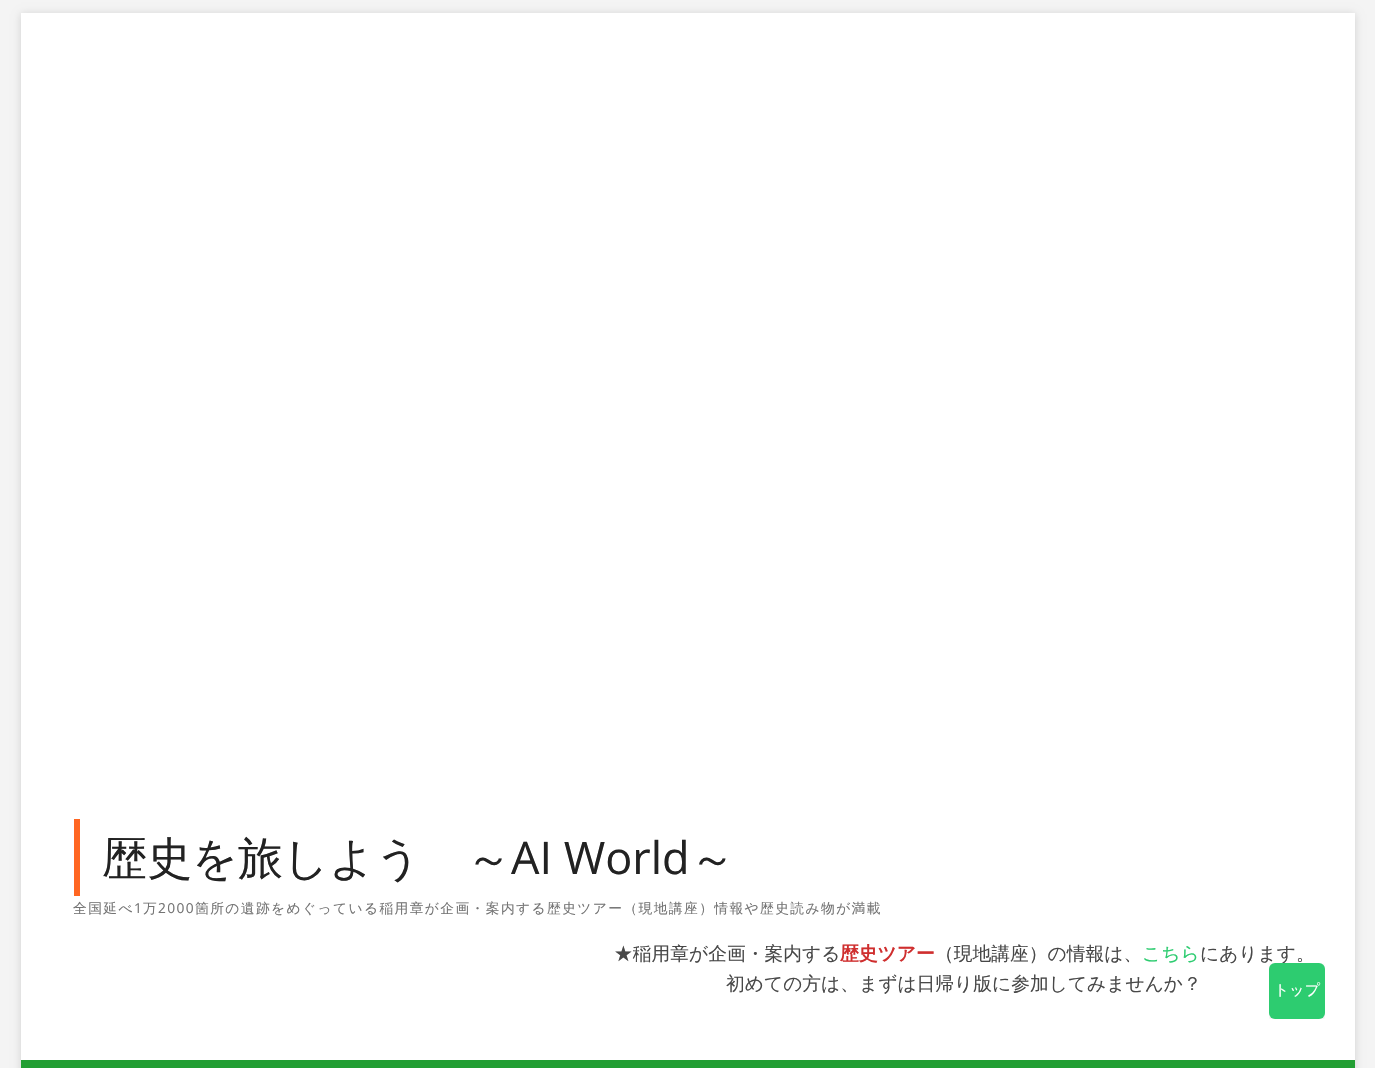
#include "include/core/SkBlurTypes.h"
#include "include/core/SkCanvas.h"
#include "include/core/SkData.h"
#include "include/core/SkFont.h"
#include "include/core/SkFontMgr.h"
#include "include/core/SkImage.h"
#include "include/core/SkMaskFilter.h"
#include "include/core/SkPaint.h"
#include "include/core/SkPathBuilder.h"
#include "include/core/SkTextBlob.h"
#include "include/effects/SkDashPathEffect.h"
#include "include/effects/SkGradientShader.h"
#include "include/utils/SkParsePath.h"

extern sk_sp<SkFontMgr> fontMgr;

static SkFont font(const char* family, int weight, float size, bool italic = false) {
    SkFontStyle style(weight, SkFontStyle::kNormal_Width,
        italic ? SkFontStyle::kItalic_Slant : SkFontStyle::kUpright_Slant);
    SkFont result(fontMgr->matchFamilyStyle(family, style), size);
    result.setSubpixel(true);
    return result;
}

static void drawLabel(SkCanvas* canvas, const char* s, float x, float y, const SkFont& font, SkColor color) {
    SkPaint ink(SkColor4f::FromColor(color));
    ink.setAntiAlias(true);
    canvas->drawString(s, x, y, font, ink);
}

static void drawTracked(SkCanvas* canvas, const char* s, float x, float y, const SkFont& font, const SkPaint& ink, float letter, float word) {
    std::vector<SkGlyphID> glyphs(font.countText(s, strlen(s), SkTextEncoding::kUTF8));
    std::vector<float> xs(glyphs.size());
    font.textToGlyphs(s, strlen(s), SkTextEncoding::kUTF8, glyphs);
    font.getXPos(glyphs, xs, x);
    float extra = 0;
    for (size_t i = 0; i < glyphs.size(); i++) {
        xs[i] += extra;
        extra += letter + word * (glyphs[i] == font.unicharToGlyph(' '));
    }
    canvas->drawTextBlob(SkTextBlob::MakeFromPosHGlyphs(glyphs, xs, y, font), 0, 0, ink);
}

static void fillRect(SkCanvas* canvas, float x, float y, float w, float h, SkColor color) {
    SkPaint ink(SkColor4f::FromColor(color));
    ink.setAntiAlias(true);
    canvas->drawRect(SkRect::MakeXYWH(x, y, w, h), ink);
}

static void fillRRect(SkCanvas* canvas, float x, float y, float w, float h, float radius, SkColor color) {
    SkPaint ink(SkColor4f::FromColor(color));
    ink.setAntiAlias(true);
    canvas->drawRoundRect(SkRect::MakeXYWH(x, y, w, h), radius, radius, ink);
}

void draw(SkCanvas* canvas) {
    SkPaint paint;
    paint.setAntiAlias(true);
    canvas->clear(0xFFF4F4F4);
    paint.setColor(0x26000000);
    paint.setMaskFilter(SkMaskFilter::MakeBlur(kNormal_SkBlurStyle, 4));
    canvas->drawRect(SkRect::MakeXYWH(21, 14, 1334, 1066), paint);
    paint.setMaskFilter(nullptr);
    fillRect(canvas, 21, 13, 1334, 1047, 0xFFFFFFFF);
    fillRect(canvas, 74, 819, 6, 77, 0xFFFF6622);
    SkFont font1 = font("WenQuanYi Zen Hei", 500, 45);
    drawLabel(canvas, "歴史を旅しよう　～", 102, 874, font1, 0xFF222222);
    SkFont font2 = font("Open Sans", 400, 45);
    drawLabel(canvas, "AI World", 511, 874, font2, 0xFF222222);
    drawLabel(canvas, "～", 690, 874, font1, 0xFF222222);
    SkFont font3 = font("WenQuanYi Zen Hei", 500, 13.75f);
    paint.setColor(0xFF747474);
    drawTracked(canvas, "全国延べ", 73, 913, font3, paint, 1.4f, 0);
    SkFont font4 = font("Open Sans", 400, 13.75f);
    drawTracked(canvas, "1", 134, 913, font4, paint, 1.4f, 0);
    drawTracked(canvas, "万", 143, 913, font3, paint, 1.4f, 0);
    drawTracked(canvas, "2000", 158, 913, font4, paint, 1.4f, 0);
    drawTracked(canvas, "箇所の遺跡をめぐっている稲用章が企画・案内する歴史ツアー（現地講座）情報や歴史読み物が満載", 195, 913, font3, paint, 1.4f, 0);
    SkFont font5 = font("WenQuanYi Zen Hei", 500, 18.75f);
    drawLabel(canvas, "★稲用章が企画・案内する", 614, 960, font5, 0xFF484848);
    SkFont font6 = font("WenQuanYi Zen Hei", 700, 18.75f);
    drawLabel(canvas, "歴史ツアー", 840, 960, font6, 0xFFCF2E2E);
    drawLabel(canvas, "（現地講座）の情報は、", 935, 960, font5, 0xFF484848);
    drawLabel(canvas, "こちら", 1142, 960, font5, 0xFF2DCC70);
    drawLabel(canvas, "にあります。", 1200, 960, font5, 0xFF484848);
    drawLabel(canvas, "初めての方は、まずは日帰り版に参加してみませんか？", 726, 990, font5, 0xFF484848);
    fillRect(canvas, 21, 1060, 1334, 8, 0xFF229E33);
    canvas->save();
    canvas->clipRect(SkRect::MakeXYWH(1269, 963, 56, 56));
    paint.setColor(0x14000000);
    paint.setMaskFilter(SkMaskFilter::MakeBlur(kNormal_SkBlurStyle, 2));
    canvas->drawRoundRect(SkRect::MakeXYWH(1269, 965, 56, 56), 6, 6, paint);
    paint.setMaskFilter(nullptr);
    canvas->restore();
    fillRRect(canvas, 1269, 963, 56, 56, 6, 0xFF2DCC70);
    SkFont font7 = font("WenQuanYi Zen Hei", 500, 15);
    drawLabel(canvas, "トップ", 1274, 995, font7, 0xFFFFFFFF);
}
